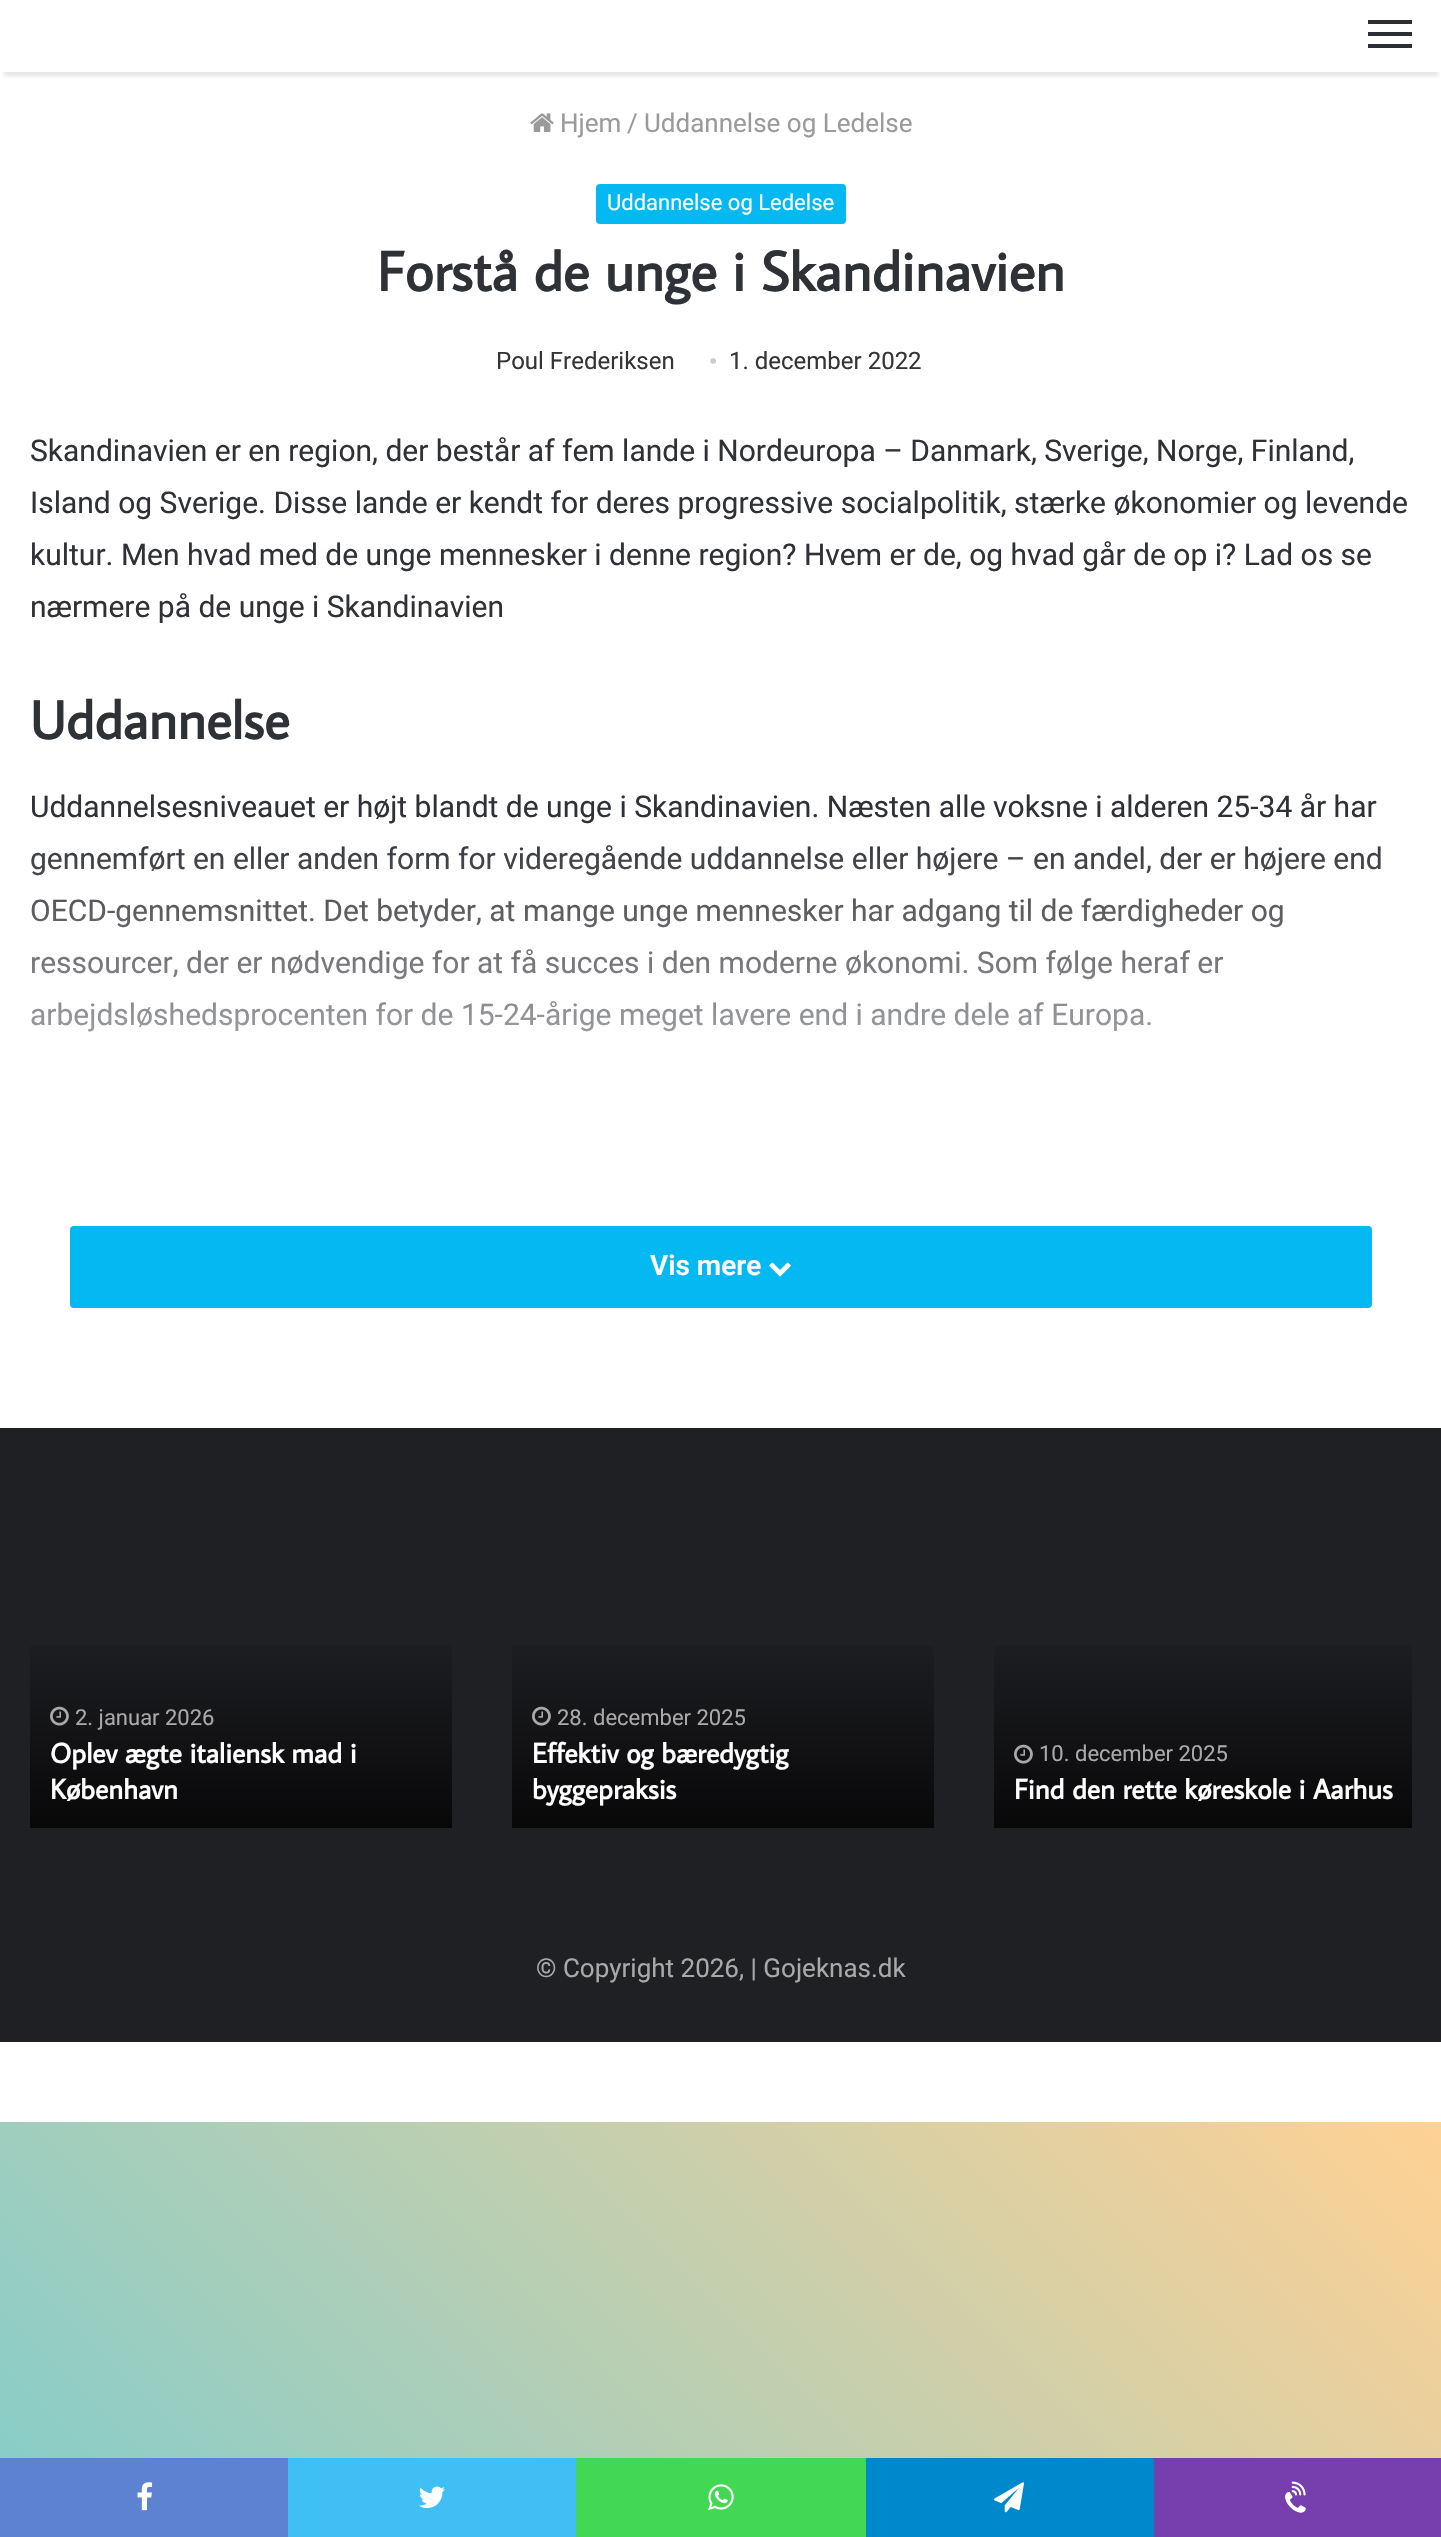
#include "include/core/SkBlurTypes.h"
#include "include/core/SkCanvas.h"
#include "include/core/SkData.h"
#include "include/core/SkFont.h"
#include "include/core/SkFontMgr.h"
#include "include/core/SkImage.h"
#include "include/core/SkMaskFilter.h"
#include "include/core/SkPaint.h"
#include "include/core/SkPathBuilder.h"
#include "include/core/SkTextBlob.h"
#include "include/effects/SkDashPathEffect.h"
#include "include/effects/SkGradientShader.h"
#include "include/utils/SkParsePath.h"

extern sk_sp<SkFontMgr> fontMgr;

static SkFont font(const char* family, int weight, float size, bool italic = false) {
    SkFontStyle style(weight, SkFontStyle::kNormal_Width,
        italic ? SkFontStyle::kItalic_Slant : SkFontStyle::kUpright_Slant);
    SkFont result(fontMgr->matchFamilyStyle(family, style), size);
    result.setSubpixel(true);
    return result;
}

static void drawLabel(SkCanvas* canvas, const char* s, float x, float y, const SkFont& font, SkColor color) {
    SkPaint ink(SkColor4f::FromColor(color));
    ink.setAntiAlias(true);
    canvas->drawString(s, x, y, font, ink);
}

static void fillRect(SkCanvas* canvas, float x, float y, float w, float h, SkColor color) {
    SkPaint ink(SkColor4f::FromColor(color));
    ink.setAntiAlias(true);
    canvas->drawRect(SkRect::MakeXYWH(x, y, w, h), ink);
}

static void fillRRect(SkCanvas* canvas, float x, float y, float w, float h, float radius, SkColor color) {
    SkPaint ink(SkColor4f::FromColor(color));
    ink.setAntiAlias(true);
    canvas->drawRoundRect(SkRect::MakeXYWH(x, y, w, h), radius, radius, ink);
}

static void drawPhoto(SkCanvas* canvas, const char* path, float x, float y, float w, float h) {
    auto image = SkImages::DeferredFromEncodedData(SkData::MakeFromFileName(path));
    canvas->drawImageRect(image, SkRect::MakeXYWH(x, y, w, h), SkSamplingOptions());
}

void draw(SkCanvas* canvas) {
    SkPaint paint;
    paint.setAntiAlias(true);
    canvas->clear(0xFFFFFFFF);
    {
        const SkColor colors[] = {0xFF11C9FC, 0xFFFFD194};
        const float stops[] = {0, 1};
        const SkPoint ends[] = {{-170, 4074}, {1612, 2292}};
        paint.setShader(SkGradientShader::MakeLinear(ends, colors, stops, 2, SkTileMode::kClamp));
        paint.setAlpha(255);
    }
    canvas->drawRect(SkRect::MakeXYWH(0, 2122, 1441, 336), paint);
    canvas->save();
    canvas->clipRect(SkRect::MakeXYWH(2, 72, 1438, 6));
    paint.setShader(nullptr);
    paint.setColor(0x1A000000);
    paint.setMaskFilter(SkMaskFilter::MakeBlur(kNormal_SkBlurStyle, 2));
    canvas->drawRect(SkRect::MakeXYWH(4, 12, 1434, 64), paint);
    paint.setMaskFilter(nullptr);
    canvas->restore();
    fillRect(canvas, 1368, 32, 44, 4, 0xFF2C2F34);
    fillRect(canvas, 1368, 20, 44, 4, 0xFF2C2F34);
    fillRect(canvas, 1368, 44, 44, 4, 0xFF2C2F34);
    drawPhoto(canvas, "assets/img1.png", 530, 113, 24, 19);
    SkFont font1 = font("Roboto", 400, 26);
    drawLabel(canvas, "Hjem", 560, 132, font1, 0xFF9A9A9A);
    drawLabel(canvas, "/", 627, 132, font1, 0xFF9A9A9A);
    drawLabel(canvas, "Uddannelse og Ledelse", 644, 132, font1, 0xFF9A9A9A);
    fillRRect(canvas, 596, 184, 250, 40, 4, 0xFF04B8F2);
    SkFont font2 = font("Roboto", 400, 22);
    drawLabel(canvas, "Uddannelse og Ledelse", 607, 210, font2, 0xFFFFFFFF);
    SkFont font3 = font("Average Sans", 700, 56);
    drawLabel(canvas, "Forstå de unge i Skandinavien", 377, 291, font3, 0xFF2E3136);
    SkFont font4 = font("Roboto", 400, 24);
    drawLabel(canvas, "Poul Frederiksen", 496, 369, font4, 0xFF353535);
    SkFont font5 = font("Liberation Serif", 400, 24);
    drawLabel(canvas, "•", 709, 369, font5, 0xFFCDCDCD);
    drawLabel(canvas, "1. december 2022", 729, 369, font4, 0xFF353535);
    SkFont font6 = font("Roboto", 400, 30);
    drawLabel(canvas, "Skandinavien er en region, der består af fem lande i Nordeuropa – Danmark, Sverige, Norge, Finland,", 30, 461, font6, 0xFF2E3136);
    drawLabel(canvas, "Island og Sverige. Disse lande er kendt for deres progressive socialpolitik, stærke økonomier og levende", 30, 513, font6, 0xFF2E3136);
    drawLabel(canvas, "kultur. Men hvad med de unge mennesker i denne region? Hvem er de, og hvad går de op i? Lad os se", 30, 565, font6, 0xFF2E3136);
    drawLabel(canvas, "nærmere på de unge i Skandinavien", 30, 617, font6, 0xFF2E3136);
    SkFont font7 = font("Average Sans", 700, 54);
    drawLabel(canvas, "Uddannelse", 30, 739, font7, 0xFF2E3136);
    drawLabel(canvas, "Uddannelsesniveauet er højt blandt de unge i Skandinavien. Næsten alle voksne i alderen 25-34 år har", 30, 817, font6, 0xFF2E3136);
    drawLabel(canvas, "gennemført en eller anden form for videregående uddannelse eller højere – en andel, der er højere end", 30, 869, font6, 0xFF2E3136);
    drawLabel(canvas, "OECD-gennemsnittet. Det betyder, at mange unge mennesker har adgang til de færdigheder og", 30, 921, font6, 0xFF2E3136);
    drawLabel(canvas, "ressourcer, der er nødvendige for at få succes i den moderne økonomi. Som følge heraf er", 30, 973, font6, 0xFF2E3136);
    drawLabel(canvas, "arbejdsløshedsprocenten for de 15-24-årige meget lavere end i andre dele af Europa.", 30, 1025, font6, 0xFF2E3136);
    {
        const SkColor colors[] = {0x00FFFFFF, 0xFFFFFFFF};
        const float stops[] = {0.5f, 1};
        const SkPoint ends[] = {{721, 426}, {721, 1226}};
        paint.setShader(SkGradientShader::MakeLinear(ends, colors, stops, 2, SkTileMode::kClamp));
        paint.setAlpha(255);
    }
    canvas->drawRect(SkRect::MakeXYWH(31, 845, 1350, 187), paint);
    fillRRect(canvas, 70, 1226, 1302, 82, 4, 0xFF04B8F2);
    SkFont font8 = font("Roboto", 600, 28);
    drawLabel(canvas, "Vis mere", 650, 1275, font8, 0xFFFFFFFF);
    drawPhoto(canvas, "assets/img2.png", 769, 1262, 22, 15);
    fillRect(canvas, 0, 1428, 1441, 614, 0xFF1F2024);
    {
        const SkColor colors[] = {0xFF1F2024, 0xFF080809};
        const float stops[] = {0, 1};
        const SkPoint ends[] = {{241, 1626}, {241, 1828}};
        paint.setShader(SkGradientShader::MakeLinear(ends, colors, stops, 2, SkTileMode::kClamp));
        paint.setAlpha(255);
    }
    canvas->drawRect(SkRect::MakeXYWH(30, 1645, 422, 183), paint);
    drawPhoto(canvas, "assets/img3.png", 50, 1706, 19, 20);
    drawLabel(canvas, "2. januar 2026", 75, 1725, font2, 0xFFA9A9A9);
    SkFont font9 = font("Average Sans", 700, 28);
    drawLabel(canvas, "Oplev ægte italiensk mad i", 50, 1763, font9, 0xFFFFFFFF);
    drawLabel(canvas, "København", 50, 1799, font9, 0xFFFFFFFF);
    {
        const SkColor colors[] = {0xFF1F2024, 0xFF080809};
        const float stops[] = {0, 1};
        const SkPoint ends[] = {{723, 1626}, {723, 1828}};
        paint.setShader(SkGradientShader::MakeLinear(ends, colors, stops, 2, SkTileMode::kClamp));
        paint.setAlpha(255);
    }
    canvas->drawRect(SkRect::MakeXYWH(512, 1645, 422, 183), paint);
    drawPhoto(canvas, "assets/img3.png", 532, 1706, 19, 20);
    drawLabel(canvas, "28. december 2025", 557, 1725, font2, 0xFFA9A9A9);
    drawLabel(canvas, "Effektiv og bæredygtig", 532, 1763, font9, 0xFFFFFFFF);
    drawLabel(canvas, "byggepraksis", 532, 1799, font9, 0xFFFFFFFF);
    {
        const SkColor colors[] = {0xFF1F2024, 0xFF080809};
        const float stops[] = {0, 1};
        const SkPoint ends[] = {{1205, 1626}, {1205, 1828}};
        paint.setShader(SkGradientShader::MakeLinear(ends, colors, stops, 2, SkTileMode::kClamp));
        paint.setAlpha(255);
    }
    canvas->drawRect(SkRect::MakeXYWH(994, 1645, 418, 183), paint);
    drawPhoto(canvas, "assets/img4.png", 1014, 1744, 19, 20);
    drawLabel(canvas, "10. december 2025", 1039, 1761, font2, 0xFFA9A9A9);
    drawLabel(canvas, "Find den rette køreskole i Aarhus", 1014, 1799, font9, 0xFFFFFFFF);
    drawLabel(canvas, "© Copyright 2026, | Gojeknas.dk", 536, 1977, font1, 0xFFA9A9A9);
    fillRect(canvas, 0, 2458, 288, 79, 0xFF5D82D1);
    drawPhoto(canvas, "assets/img5.png", 137, 2482, 16, 29);
    fillRect(canvas, 288, 2458, 288, 79, 0xFF40BFF5);
    drawPhoto(canvas, "assets/img6.png", 419, 2486, 26, 22);
    fillRect(canvas, 576, 2458, 290, 79, 0xFF43D854);
    drawPhoto(canvas, "assets/img7.png", 708, 2484, 26, 27);
    fillRect(canvas, 866, 2458, 288, 79, 0xFF0088CC);
    drawPhoto(canvas, "assets/img8.png", 994, 2482, 30, 31);
    fillRect(canvas, 1154, 2458, 287, 79, 0xFF773EAD);
    drawPhoto(canvas, "assets/img9.png", 1285, 2481, 21, 32);
}
